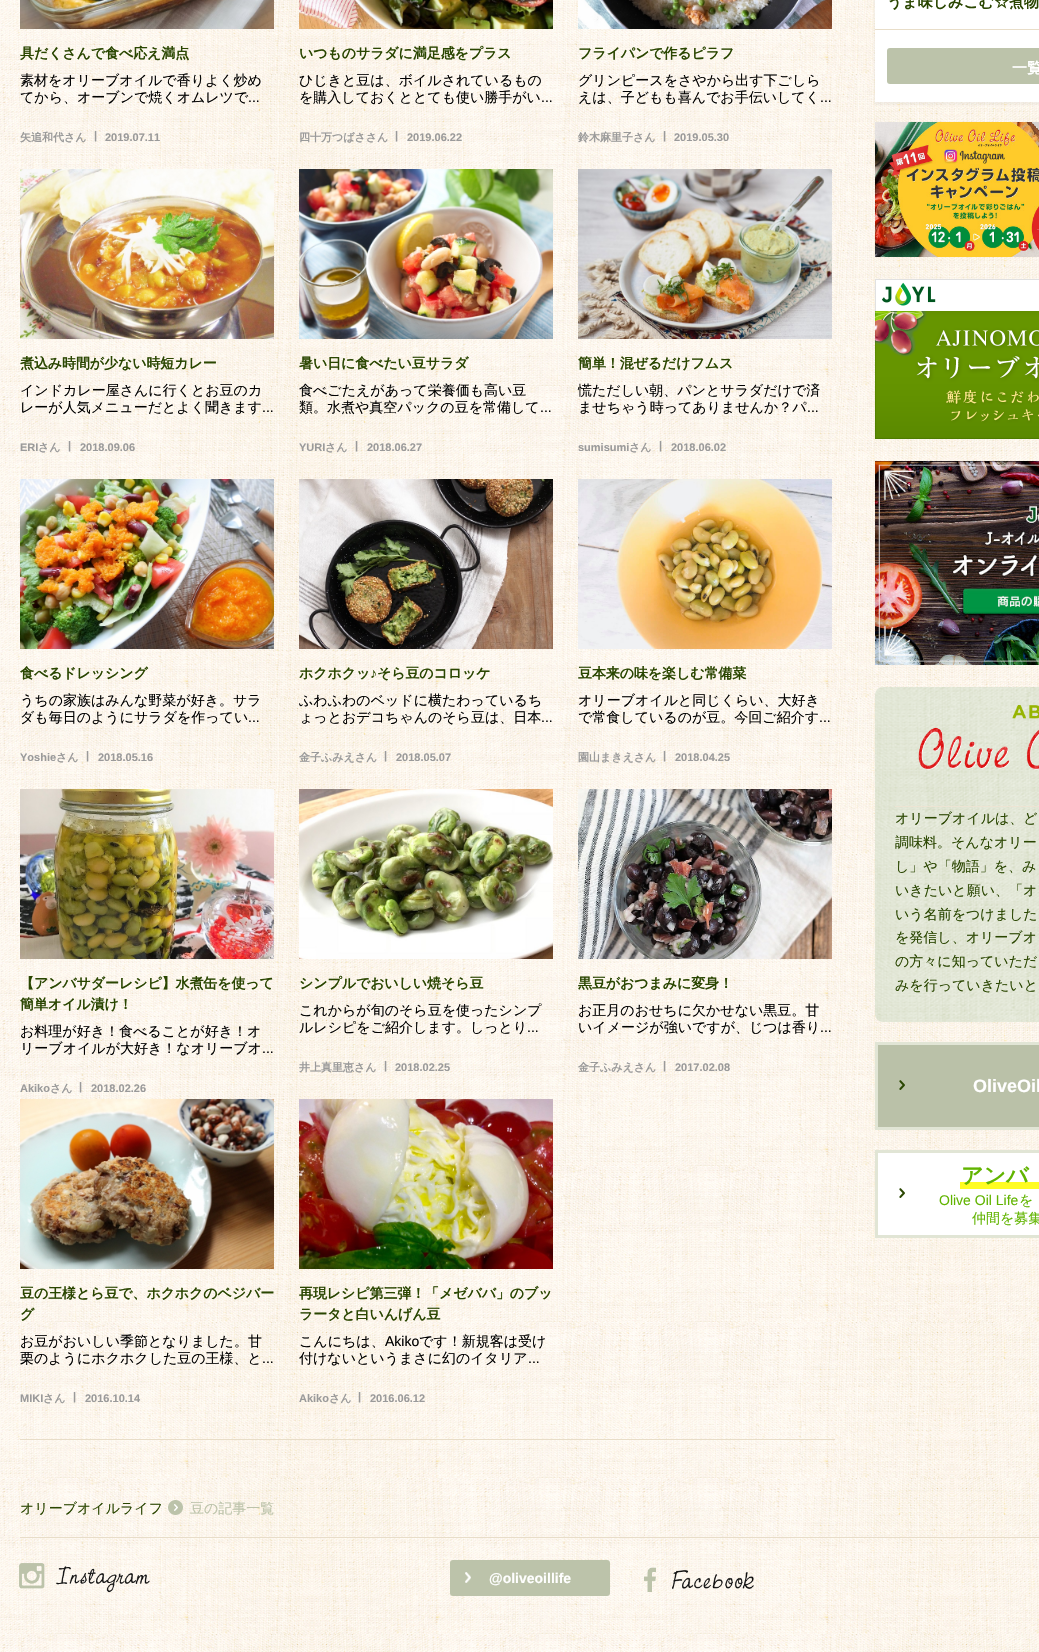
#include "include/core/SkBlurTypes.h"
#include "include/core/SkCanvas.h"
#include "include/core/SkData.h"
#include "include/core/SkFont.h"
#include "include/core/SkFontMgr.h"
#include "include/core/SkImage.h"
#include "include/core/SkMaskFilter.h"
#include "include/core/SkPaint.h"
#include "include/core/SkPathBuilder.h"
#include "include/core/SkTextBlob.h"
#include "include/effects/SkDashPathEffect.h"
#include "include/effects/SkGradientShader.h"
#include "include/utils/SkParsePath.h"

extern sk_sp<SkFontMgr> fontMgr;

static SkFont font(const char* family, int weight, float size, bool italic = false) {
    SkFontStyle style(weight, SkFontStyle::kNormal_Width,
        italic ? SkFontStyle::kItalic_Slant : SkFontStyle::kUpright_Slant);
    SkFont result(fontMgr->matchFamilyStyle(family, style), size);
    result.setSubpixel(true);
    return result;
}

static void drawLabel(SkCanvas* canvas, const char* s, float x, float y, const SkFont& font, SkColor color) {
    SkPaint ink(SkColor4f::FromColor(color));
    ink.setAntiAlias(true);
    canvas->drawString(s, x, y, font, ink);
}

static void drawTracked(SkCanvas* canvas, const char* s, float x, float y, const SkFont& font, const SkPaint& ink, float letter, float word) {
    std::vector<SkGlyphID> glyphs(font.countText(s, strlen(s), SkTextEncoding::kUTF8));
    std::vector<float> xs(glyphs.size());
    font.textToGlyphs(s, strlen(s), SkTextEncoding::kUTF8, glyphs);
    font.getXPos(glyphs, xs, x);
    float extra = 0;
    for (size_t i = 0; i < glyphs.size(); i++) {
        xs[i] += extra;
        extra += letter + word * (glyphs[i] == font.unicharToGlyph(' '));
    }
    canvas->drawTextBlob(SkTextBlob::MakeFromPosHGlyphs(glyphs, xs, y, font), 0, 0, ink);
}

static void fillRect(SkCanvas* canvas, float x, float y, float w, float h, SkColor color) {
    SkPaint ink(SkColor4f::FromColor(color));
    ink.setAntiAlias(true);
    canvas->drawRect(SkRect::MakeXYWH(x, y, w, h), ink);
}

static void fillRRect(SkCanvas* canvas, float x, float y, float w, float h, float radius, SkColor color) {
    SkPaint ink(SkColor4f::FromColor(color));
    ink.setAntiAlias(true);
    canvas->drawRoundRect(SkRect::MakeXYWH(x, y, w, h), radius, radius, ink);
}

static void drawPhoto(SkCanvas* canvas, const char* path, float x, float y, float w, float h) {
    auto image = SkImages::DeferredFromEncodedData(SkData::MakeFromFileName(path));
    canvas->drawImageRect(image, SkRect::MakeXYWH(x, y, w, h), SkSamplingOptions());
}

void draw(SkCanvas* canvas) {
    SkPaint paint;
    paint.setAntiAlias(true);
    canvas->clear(0xFFFFFFFF);
    drawPhoto(canvas, "assets/img1.png", 0, 0, 1039, 1652);
    fillRect(canvas, 20, 1439, 815, 1, 0xFFE8DDC8);
    drawPhoto(canvas, "assets/img2.png", 20, 0, 254, 29);
    SkFont font1 = font("WenQuanYi Zen Hei", 700, 14);
    paint.setColor(0xFF2A4601);
    drawTracked(canvas, "具だくさんで食べ応え満点", 20, 58, font1, paint, -0.1f, 0);
    SkFont font2 = font("WenQuanYi Zen Hei", 500, 14);
    drawLabel(canvas, "素材をオリーブオイルで香りよく炒め", 20, 85, font2, 0xFF000000);
    drawLabel(canvas, "てから、オーブンで焼くオムレツで", 20, 102, font2, 0xFF000000);
    SkFont font3 = font("Liberation Sans", 400, 14);
    drawLabel(canvas, "...", 248, 102, font3, 0xFF000000);
    SkFont font4 = font("WenQuanYi Zen Hei", 700, 11);
    drawLabel(canvas, "矢追和代さん", 20, 141, font4, 0xFF9A9A9A);
    SkFont font5 = font("Liberation Sans", 700, 11);
    drawLabel(canvas, "|", 94, 139, font5, 0xFF9A9A9A);
    drawLabel(canvas, "2019.07.11", 105, 141, font5, 0xFF9A9A9A);
    drawPhoto(canvas, "assets/img3.png", 299, 0, 254, 29);
    drawTracked(canvas, "いつものサラダに満足感をプラス", 299, 58, font1, paint, -0.1f, 0);
    drawLabel(canvas, "ひじきと豆は、ボイルされているもの", 299, 85, font2, 0xFF000000);
    drawLabel(canvas, "を購入しておくととても使い勝手がい", 299, 102, font2, 0xFF000000);
    drawLabel(canvas, "...", 541, 102, font3, 0xFF000000);
    drawLabel(canvas, "四十万つばささん", 299, 141, font4, 0xFF9A9A9A);
    drawLabel(canvas, "|", 395, 139, font5, 0xFF9A9A9A);
    drawLabel(canvas, "2019.06.22", 407, 141, font5, 0xFF9A9A9A);
    drawPhoto(canvas, "assets/img4.png", 578, 0, 254, 29);
    drawTracked(canvas, "フライパンで作るピラフ", 578, 58, font1, paint, -0.1f, 0);
    drawLabel(canvas, "グリンピースをさやから出す下ごしら", 578, 85, font2, 0xFF000000);
    drawLabel(canvas, "えは、子どもも喜んでお手伝いしてく", 578, 102, font2, 0xFF000000);
    drawLabel(canvas, "...", 820, 102, font3, 0xFF000000);
    drawLabel(canvas, "鈴木麻里子さん", 578, 141, font4, 0xFF9A9A9A);
    drawLabel(canvas, "|", 663, 139, font5, 0xFF9A9A9A);
    drawLabel(canvas, "2019.05.30", 674, 141, font5, 0xFF9A9A9A);
    drawPhoto(canvas, "assets/img5.png", 20, 169, 254, 170);
    drawTracked(canvas, "煮込み時間が少ない時短カレー", 20, 368, font1, paint, -0.1f, 0);
    drawLabel(canvas, "インドカレー屋さんに行くとお豆のカ", 20, 395, font2, 0xFF000000);
    drawLabel(canvas, "レーが人気メニューだとよく聞きます", 20, 412, font2, 0xFF000000);
    drawLabel(canvas, "...", 262, 412, font3, 0xFF000000);
    drawLabel(canvas, "ERI", 20, 451, font5, 0xFF9A9A9A);
    drawLabel(canvas, "さん", 38, 451, font4, 0xFF9A9A9A);
    drawLabel(canvas, "|", 68, 449, font5, 0xFF9A9A9A);
    drawLabel(canvas, "2018.09.06", 80, 451, font5, 0xFF9A9A9A);
    drawPhoto(canvas, "assets/img6.png", 299, 169, 254, 170);
    drawTracked(canvas, "暑い日に食べたい豆サラダ", 299, 368, font1, paint, -0.1f, 0);
    drawLabel(canvas, "食べごたえがあって栄養価も高い豆", 299, 395, font2, 0xFF000000);
    drawLabel(canvas, "類。水煮や真空パックの豆を常備して", 299, 412, font2, 0xFF000000);
    drawLabel(canvas, "...", 540, 412, font3, 0xFF000000);
    drawLabel(canvas, "YURI", 299, 451, font5, 0xFF9A9A9A);
    drawLabel(canvas, "さん", 325, 451, font4, 0xFF9A9A9A);
    drawLabel(canvas, "|", 355, 449, font5, 0xFF9A9A9A);
    drawLabel(canvas, "2018.06.27", 367, 451, font5, 0xFF9A9A9A);
    drawPhoto(canvas, "assets/img7.png", 578, 169, 254, 170);
    drawTracked(canvas, "簡単！混ぜるだけフムス", 578, 368, font1, paint, -0.1f, 0);
    drawLabel(canvas, "慌ただしい朝、パンとサラダだけで済", 578, 395, font2, 0xFF000000);
    drawLabel(canvas, "ませちゃう時ってありませんか？パ", 578, 412, font2, 0xFF000000);
    drawLabel(canvas, "...", 807, 412, font3, 0xFF000000);
    drawLabel(canvas, "sumisumi", 578, 451, font5, 0xFF9A9A9A);
    drawLabel(canvas, "さん", 629, 451, font4, 0xFF9A9A9A);
    drawLabel(canvas, "|", 659, 449, font5, 0xFF9A9A9A);
    drawLabel(canvas, "2018.06.02", 671, 451, font5, 0xFF9A9A9A);
    drawPhoto(canvas, "assets/img8.png", 20, 479, 254, 170);
    drawTracked(canvas, "食べるドレッシング", 20, 678, font1, paint, -0.1f, 0);
    drawLabel(canvas, "うちの家族はみんな野菜が好き。サラ", 20, 705, font2, 0xFF000000);
    drawLabel(canvas, "ダも毎日のようにサラダを作ってい", 20, 722, font2, 0xFF000000);
    drawLabel(canvas, "...", 248, 722, font3, 0xFF000000);
    drawLabel(canvas, "Yoshie", 20, 761, font5, 0xFF9A9A9A);
    drawLabel(canvas, "さん", 56, 761, font4, 0xFF9A9A9A);
    drawLabel(canvas, "|", 86, 759, font5, 0xFF9A9A9A);
    drawLabel(canvas, "2018.05.16", 98, 761, font5, 0xFF9A9A9A);
    drawPhoto(canvas, "assets/img9.png", 299, 479, 254, 170);
    drawTracked(canvas, "ホクホクッ", 299, 678, font1, paint, -0.1f, 0);
    SkFont font6 = font("Liberation Sans", 700, 14);
    drawTracked(canvas, "♪", 370, 678, font6, paint, -0.1f, 0);
    drawTracked(canvas, "そら豆のコロッケ", 377, 678, font1, paint, -0.1f, 0);
    drawLabel(canvas, "ふわふわのベッドに横たわっているち", 299, 705, font2, 0xFF000000);
    drawLabel(canvas, "ょっとおデコちゃんのそら豆は、日本", 299, 722, font2, 0xFF000000);
    drawLabel(canvas, "...", 541, 722, font3, 0xFF000000);
    drawLabel(canvas, "金子ふみえさん", 299, 761, font4, 0xFF9A9A9A);
    drawLabel(canvas, "|", 384, 759, font5, 0xFF9A9A9A);
    drawLabel(canvas, "2018.05.07", 396, 761, font5, 0xFF9A9A9A);
    drawPhoto(canvas, "assets/img10.png", 578, 479, 254, 170);
    drawTracked(canvas, "豆本来の味を楽しむ常備菜", 578, 678, font1, paint, -0.1f, 0);
    drawLabel(canvas, "オリーブオイルと同じくらい、大好き", 578, 705, font2, 0xFF000000);
    drawLabel(canvas, "で常食しているのが豆。今回ご紹介す", 578, 722, font2, 0xFF000000);
    drawLabel(canvas, "...", 819, 722, font3, 0xFF000000);
    drawLabel(canvas, "園山まきえさん", 578, 761, font4, 0xFF9A9A9A);
    drawLabel(canvas, "|", 663, 759, font5, 0xFF9A9A9A);
    drawLabel(canvas, "2018.04.25", 675, 761, font5, 0xFF9A9A9A);
    drawPhoto(canvas, "assets/img11.png", 20, 789, 254, 170);
    drawTracked(canvas, "【アンバサダーレシピ】水煮缶を使って", 20, 988, font1, paint, -0.1f, 0);
    drawTracked(canvas, "簡単オイル漬け！", 20, 1009, font1, paint, -0.1f, 0);
    drawLabel(canvas, "お料理が好き！食べることが好き！オ", 20, 1036, font2, 0xFF000000);
    drawLabel(canvas, "リーブオイルが大好き！なオリーブオ", 20, 1053, font2, 0xFF000000);
    drawLabel(canvas, "...", 262, 1053, font3, 0xFF000000);
    drawLabel(canvas, "Akiko", 20, 1092, font5, 0xFF9A9A9A);
    drawLabel(canvas, "さん", 50, 1092, font4, 0xFF9A9A9A);
    drawLabel(canvas, "|", 79, 1090, font5, 0xFF9A9A9A);
    drawLabel(canvas, "2018.02.26", 91, 1092, font5, 0xFF9A9A9A);
    drawPhoto(canvas, "assets/img12.png", 299, 789, 254, 170);
    drawTracked(canvas, "シンプルでおいしい焼そら豆", 299, 988, font1, paint, -0.1f, 0);
    drawLabel(canvas, "これからが旬のそら豆を使ったシンプ", 299, 1015, font2, 0xFF000000);
    drawLabel(canvas, "ルレシピをご紹介します。しっとり", 299, 1032, font2, 0xFF000000);
    drawLabel(canvas, "...", 527, 1032, font3, 0xFF000000);
    drawLabel(canvas, "井上真里恵さん", 299, 1071, font4, 0xFF9A9A9A);
    drawLabel(canvas, "|", 384, 1069, font5, 0xFF9A9A9A);
    drawLabel(canvas, "2018.02.25", 395, 1071, font5, 0xFF9A9A9A);
    drawPhoto(canvas, "assets/img13.png", 578, 789, 254, 170);
    drawTracked(canvas, "黒豆がおつまみに変身！", 578, 988, font1, paint, -0.1f, 0);
    drawLabel(canvas, "お正月のおせちに欠かせない黒豆。甘", 578, 1015, font2, 0xFF000000);
    drawLabel(canvas, "いイメージが強いですが、じつは香り", 578, 1032, font2, 0xFF000000);
    drawLabel(canvas, "...", 820, 1032, font3, 0xFF000000);
    drawLabel(canvas, "金子ふみえさん", 578, 1071, font4, 0xFF9A9A9A);
    drawLabel(canvas, "|", 663, 1069, font5, 0xFF9A9A9A);
    drawLabel(canvas, "2017.02.08", 675, 1071, font5, 0xFF9A9A9A);
    drawPhoto(canvas, "assets/img14.png", 20, 1099, 254, 170);
    drawTracked(canvas, "豆の王様とら豆で、ホクホクのベジバー", 20, 1298, font1, paint, -0.1f, 0);
    drawTracked(canvas, "グ", 20, 1319, font1, paint, -0.1f, 0);
    drawLabel(canvas, "お豆がおいしい季節となりました。甘", 20, 1346, font2, 0xFF000000);
    drawLabel(canvas, "栗のようにホクホクした豆の王様、と", 20, 1363, font2, 0xFF000000);
    drawLabel(canvas, "...", 262, 1363, font3, 0xFF000000);
    drawLabel(canvas, "MIKI", 20, 1402, font5, 0xFF9A9A9A);
    drawLabel(canvas, "さん", 43, 1402, font4, 0xFF9A9A9A);
    drawLabel(canvas, "|", 73, 1400, font5, 0xFF9A9A9A);
    drawLabel(canvas, "2016.10.14", 85, 1402, font5, 0xFF9A9A9A);
    drawPhoto(canvas, "assets/img15.png", 299, 1099, 254, 170);
    drawTracked(canvas, "再現レシピ第三弾！「メゼババ」のブッ", 299, 1298, font1, paint, -0.1f, 0);
    drawTracked(canvas, "ラータと白いんげん豆", 299, 1319, font1, paint, -0.1f, 0);
    drawLabel(canvas, "こんにちは、", 299, 1346, font2, 0xFF000000);
    drawLabel(canvas, "Akiko", 385, 1346, font3, 0xFF000000);
    drawLabel(canvas, "です！新規客は受け", 419, 1346, font2, 0xFF000000);
    drawLabel(canvas, "付けないというまさに幻のイタリア", 299, 1363, font2, 0xFF000000);
    drawLabel(canvas, "...", 528, 1363, font3, 0xFF000000);
    drawLabel(canvas, "Akiko", 299, 1402, font5, 0xFF9A9A9A);
    drawLabel(canvas, "さん", 329, 1402, font4, 0xFF9A9A9A);
    drawLabel(canvas, "|", 358, 1400, font5, 0xFF9A9A9A);
    drawLabel(canvas, "2016.06.12", 370, 1402, font5, 0xFF9A9A9A);
    paint.setColor(0x1A999999);
    paint.setMaskFilter(SkMaskFilter::MakeBlur(kNormal_SkBlurStyle, 1));
    canvas->drawRect(SkRect::MakeXYWH(874, -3, 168, 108), paint);
    paint.setMaskFilter(nullptr);
    fillRect(canvas, 875, 0, 164, 102, 0xFFFFFFFF);
    SkFont font7 = font("WenQuanYi Zen Hei", 700, 15);
    drawLabel(canvas, "うま味しみこむ☆煮物", 887, 7, font7, 0xFF2A4601);
    fillRect(canvas, 875, 29, 164, 1, 0xFFE8DDC8);
    fillRRect(canvas, 887, 48, 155, 36, 3, 0xFFBCC3AA);
    drawLabel(canvas, "一覧", 1012, 73, font7, 0xFFFFFFFF);
    drawPhoto(canvas, "assets/img16.png", 875, 122, 164, 135);
    drawPhoto(canvas, "assets/img17.png", 875, 279, 164, 160);
    drawPhoto(canvas, "assets/img18.png", 875, 461, 164, 204);
    drawPhoto(canvas, "assets/img19.png", 875, 687, 164, 335);
    fillRect(canvas, 895, 806, 144, 1, 0xFFEDE4D3);
    drawPhoto(canvas, "assets/img20.png", 1012, 705, 27, 14);
    drawPhoto(canvas, "assets/img21.png", 918, 727, 121, 43);
    drawLabel(canvas, "オリーブオイルは、ど", 895, 823, font2, 0xFF2A4601);
    drawLabel(canvas, "調味料。そんなオリー", 895, 847, font2, 0xFF2A4601);
    drawLabel(canvas, "し」や「物語」を、み", 895, 871, font2, 0xFF2A4601);
    drawLabel(canvas, "いきたいと願い、「オ", 895, 895, font2, 0xFF2A4601);
    drawLabel(canvas, "いう名前をつけました", 895, 919, font2, 0xFF2A4601);
    drawLabel(canvas, "を発信し、オリーブオ", 895, 942, font2, 0xFF2A4601);
    drawLabel(canvas, "の方々に知っていただ", 895, 966, font2, 0xFF2A4601);
    drawLabel(canvas, "みを行っていきたいと", 895, 990, font2, 0xFF2A4601);
    paint.setColor(0xFFBAC1A8);
    canvas->drawRect(SkRect::MakeXYWH(876.5f, 1043.5f, 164, 85), paint);
    paint.setStroke(true);
    paint.setStrokeWidth(3);
    paint.setColor(0xFFE1E5D5);
    canvas->drawRect(SkRect::MakeXYWH(876.5f, 1043.5f, 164, 85), paint);
    drawPhoto(canvas, "assets/img22.png", 899, 1080, 6, 10);
    SkFont font8 = font("Liberation Sans", 700, 18);
    drawLabel(canvas, "OliveOil", 973, 1092, font8, 0xFFFFFFFF);
    paint.setStroke(false);
    paint.setColor(0xFFFFFFFF);
    canvas->drawRect(SkRect::MakeXYWH(876.5f, 1151.5f, 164, 85), paint);
    paint.setStroke(true);
    paint.setColor(0xFFE1E5D5);
    canvas->drawRect(SkRect::MakeXYWH(876.5f, 1151.5f, 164, 85), paint);
    fillRect(canvas, 960, 1182, 79, 7, 0xFFFFFC22);
    SkFont font9 = font("WenQuanYi Zen Hei", 700, 22);
    drawLabel(canvas, "アンバ", 961, 1183, font9, 0xFF61B400);
    drawPhoto(canvas, "assets/img23.png", 899, 1188, 6, 10);
    drawLabel(canvas, "Olive Oil Life", 939, 1205, font3, 0xFF61B400);
    drawLabel(canvas, "を", 1019, 1205, font2, 0xFF61B400);
    drawLabel(canvas, "仲間を募集", 972, 1223, font2, 0xFF61B400);
    drawLabel(canvas, "オリーブオイルライフ", 20, 1513, font2, 0xFF2A4601);
    drawPhoto(canvas, "assets/img24.png", 168, 1500, 15, 15);
    drawLabel(canvas, "豆の記事一覧", 190, 1513, font2, 0xFFBCC3AA);
    fillRect(canvas, 20, 1537, 1019, 1, 0xFFE8DDC8);
    drawPhoto(canvas, "assets/img25.png", 19, 1563, 26, 26);
    drawPhoto(canvas, "assets/img26.png", 56, 1566, 94, 27);
    fillRRect(canvas, 450, 1560, 160, 36, 3, 0xFFBCC3AA);
    drawPhoto(canvas, "assets/img27.png", 465, 1572, 6, 11);
    drawLabel(canvas, "@oliveoillife", 489, 1583, font6, 0xFFFFFFFF);
    drawPhoto(canvas, "assets/img28.png", 644, 1567, 12, 25);
    drawPhoto(canvas, "assets/img29.png", 672, 1570, 82, 19);
}
